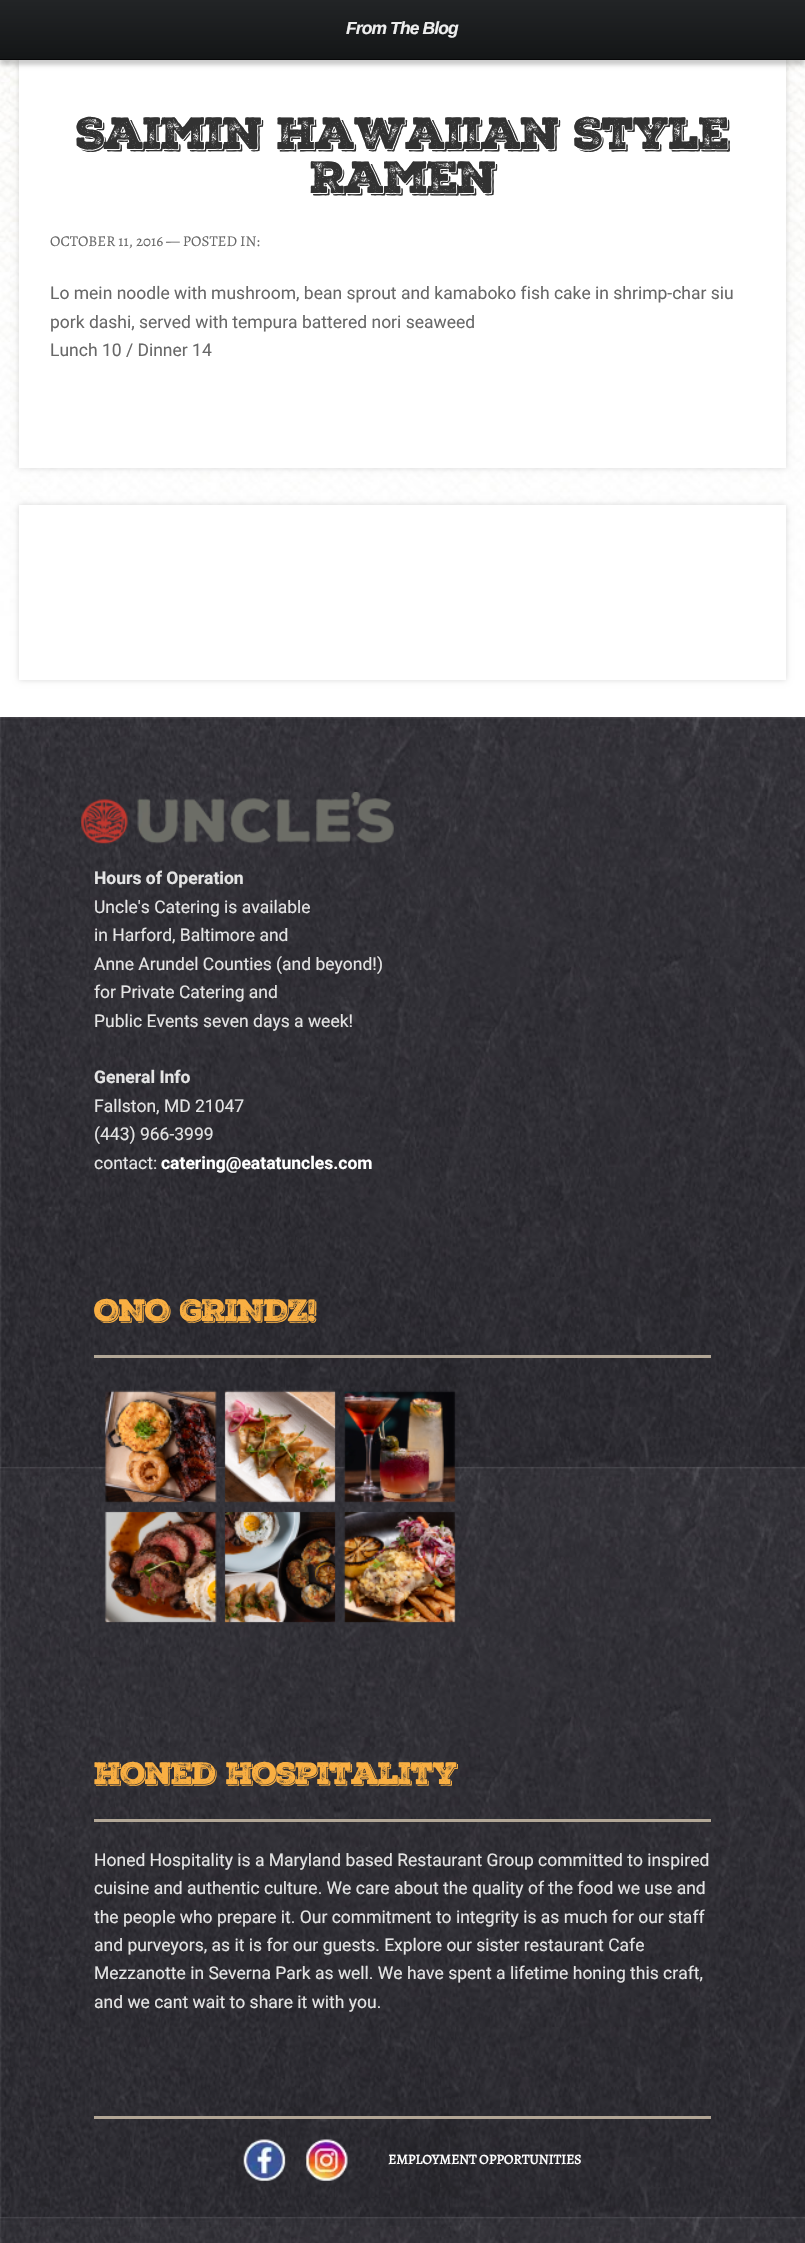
#include "include/core/SkBlurTypes.h"
#include "include/core/SkCanvas.h"
#include "include/core/SkData.h"
#include "include/core/SkFont.h"
#include "include/core/SkFontMgr.h"
#include "include/core/SkImage.h"
#include "include/core/SkMaskFilter.h"
#include "include/core/SkPaint.h"
#include "include/core/SkPathBuilder.h"
#include "include/core/SkTextBlob.h"
#include "include/effects/SkDashPathEffect.h"
#include "include/effects/SkGradientShader.h"
#include "include/utils/SkParsePath.h"

extern sk_sp<SkFontMgr> fontMgr;

static SkFont font(const char* family, int weight, float size, bool italic = false) {
    SkFontStyle style(weight, SkFontStyle::kNormal_Width,
        italic ? SkFontStyle::kItalic_Slant : SkFontStyle::kUpright_Slant);
    SkFont result(fontMgr->matchFamilyStyle(family, style), size);
    result.setSubpixel(true);
    return result;
}

static void drawLabel(SkCanvas* canvas, const char* s, float x, float y, const SkFont& font, SkColor color) {
    SkPaint ink(SkColor4f::FromColor(color));
    ink.setAntiAlias(true);
    canvas->drawString(s, x, y, font, ink);
}

static void drawTracked(SkCanvas* canvas, const char* s, float x, float y, const SkFont& font, const SkPaint& ink, float letter, float word) {
    std::vector<SkGlyphID> glyphs(font.countText(s, strlen(s), SkTextEncoding::kUTF8));
    std::vector<float> xs(glyphs.size());
    font.textToGlyphs(s, strlen(s), SkTextEncoding::kUTF8, glyphs);
    font.getXPos(glyphs, xs, x);
    float extra = 0;
    for (size_t i = 0; i < glyphs.size(); i++) {
        xs[i] += extra;
        extra += letter + word * (glyphs[i] == font.unicharToGlyph(' '));
    }
    canvas->drawTextBlob(SkTextBlob::MakeFromPosHGlyphs(glyphs, xs, y, font), 0, 0, ink);
}

static void fillRect(SkCanvas* canvas, float x, float y, float w, float h, SkColor color) {
    SkPaint ink(SkColor4f::FromColor(color));
    ink.setAntiAlias(true);
    canvas->drawRect(SkRect::MakeXYWH(x, y, w, h), ink);
}

static void drawPhoto(SkCanvas* canvas, const char* path, float x, float y, float w, float h) {
    auto image = SkImages::DeferredFromEncodedData(SkData::MakeFromFileName(path));
    canvas->drawImageRect(image, SkRect::MakeXYWH(x, y, w, h), SkSamplingOptions());
}

void draw(SkCanvas* canvas) {
    SkPaint paint;
    paint.setAntiAlias(true);
    canvas->clear(0xFFFFFFFF);
    drawPhoto(canvas, "assets/img1.png", 0, 60, 805, 657);
    paint.setColor(0x26000000);
    paint.setMaskFilter(SkMaskFilter::MakeBlur(kNormal_SkBlurStyle, 3));
    canvas->drawRect(SkRect::MakeXYWH(19, -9, 767, 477), paint);
    paint.setMaskFilter(nullptr);
    fillRect(canvas, 19, 60, 767, 408, 0xFFFFFFFF);
    paint.setColor(0x33000000);
    paint.setMaskFilter(SkMaskFilter::MakeBlur(kNormal_SkBlurStyle, 2));
    canvas->drawRect(SkRect::MakeXYWH(0, 5, 805, 60), paint);
    paint.setMaskFilter(nullptr);
    {
        const SkColor colors[] = {0xFF141617, 0xFF222426};
        const float stops[] = {0.01f, 1};
        const SkPoint ends[] = {{0, 59}, {0, 0}};
        paint.setShader(SkGradientShader::MakeLinear(ends, colors, stops, 2, SkTileMode::kClamp));
        paint.setAlpha(255);
    }
    canvas->drawRect(SkRect::MakeXYWH(0, 0, 805, 59), paint);
    fillRect(canvas, 0, 59, 805, 1, 0xFF070708);
    SkFont font1 = font("Liberation Sans", 700, 17.5f, true);
    paint.setShader(nullptr);
    paint.setColor(0xFFEEEEEE);
    drawTracked(canvas, "From The Blog", 346, 34, font1, paint, -0.9f, 0);
    SkFont font2 = font("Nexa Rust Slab", 900, 43.75f);
    paint.setColor(0xFF323232);
    drawTracked(canvas, "Saimin Hawaiian Style", 76, 149, font2, paint, -2.2f, 0);
    drawTracked(canvas, "Ramen", 310, 193, font2, paint, -2.2f, 0);
    SkFont font3 = font("Alegreya", 400, 15);
    drawLabel(canvas, "OCTOBER 11, 2016 — POSTED IN:", 50, 246, font3, 0xFF686868);
    SkFont font4 = font("Roboto", 400, 17.5f);
    drawLabel(canvas, "Lo mein noodle with mushroom, bean sprout and kamaboko fish cake in shrimp-char siu", 50, 299, font4, 0xFF686868);
    drawLabel(canvas, "pork dashi, served with tempura battered nori seaweed", 50, 328, font4, 0xFF686868);
    drawLabel(canvas, "Lunch 10 / Dinner 14", 50, 356, font4, 0xFF686868);
    paint.setColor(0x26000000);
    paint.setMaskFilter(SkMaskFilter::MakeBlur(kNormal_SkBlurStyle, 3));
    canvas->drawRect(SkRect::MakeXYWH(19, 505, 767, 175), paint);
    paint.setMaskFilter(nullptr);
    fillRect(canvas, 19, 505, 767, 175, 0xFFFFFFFF);
    drawPhoto(canvas, "assets/img2.png", 0, 717, 805, 1526);
    drawPhoto(canvas, "assets/img3.png", 81, 792, 313, 52);
    SkFont font5 = font("Roboto", 700, 17.5f);
    drawLabel(canvas, "Hours of Operation", 94, 884, font5, 0xFFE4E4E4);
    drawLabel(canvas, "Uncle's Catering is available", 94, 913, font4, 0xFFE4E4E4);
    drawLabel(canvas, "in Harford, Baltimore and", 94, 941, font4, 0xFFE4E4E4);
    drawLabel(canvas, "Anne Arundel Counties (and beyond!)", 94, 970, font4, 0xFFE4E4E4);
    drawLabel(canvas, "for Private Catering and", 94, 998, font4, 0xFFE4E4E4);
    drawLabel(canvas, "Public Events seven days a week!", 94, 1027, font4, 0xFFE4E4E4);
    drawLabel(canvas, "General Info", 94, 1083, font5, 0xFFE4E4E4);
    drawLabel(canvas, "Fallston, MD 21047", 94, 1112, font4, 0xFFE4E4E4);
    drawLabel(canvas, "(443) 966-3999", 94, 1140, font4, 0xFFE4E4E4);
    drawLabel(canvas, "contact:", 94, 1169, font4, 0xFFE4E4E4);
    drawLabel(canvas, "catering@eatatuncles.com", 161, 1169, font5, 0xFFFFFFFF);
    fillRect(canvas, 94, 1355, 617, 3, 0xFFB2A797);
    SkFont font6 = font("Nexa Rust Slab", 900, 30);
    paint.setColor(0xFFF9AF42);
    drawTracked(canvas, "ONO GRINDZ!", 94, 1321, font6, paint, -1.5f, 0);
    drawPhoto(canvas, "assets/img4.png", 104, 1390, 352, 233);
    fillRect(canvas, 94, 1819, 617, 3, 0xFFB2A797);
    drawTracked(canvas, "Honed Hospitality", 94, 1784, font6, paint, -1.5f, 0);
    drawLabel(canvas, "Honed Hospitality is a Maryland based Restaurant Group committed to inspired", 94, 1866, font4, 0xFFE4E4E4);
    drawLabel(canvas, "cuisine and authentic culture. We care about the quality of the food we use and", 94, 1894, font4, 0xFFE4E4E4);
    drawLabel(canvas, "the people who prepare it. Our commitment to integrity is as much for our staff", 94, 1923, font4, 0xFFE4E4E4);
    drawLabel(canvas, "and purveyors, as it is for our guests. Explore our sister restaurant Cafe", 94, 1951, font4, 0xFFE4E4E4);
    drawLabel(canvas, "Mezzanotte in Severna Park as well. We have spent a lifetime honing this craft,", 94, 1979, font4, 0xFFE4E4E4);
    drawLabel(canvas, "and we cant wait to share it with you.", 94, 2008, font4, 0xFFE4E4E4);
    fillRect(canvas, 94, 2116, 617, 3, 0xFFB2A696);
    drawPhoto(canvas, "assets/img5.png", 243, 2139, 43, 42);
    drawPhoto(canvas, "assets/img6.png", 306, 2139, 42, 42);
    SkFont font7 = font("Alegreya", 700, 13.75f);
    drawLabel(canvas, "EMPLOYMENT OPPORTUNITIES", 388, 2164, font7, 0xFFFFFFFF);
}
